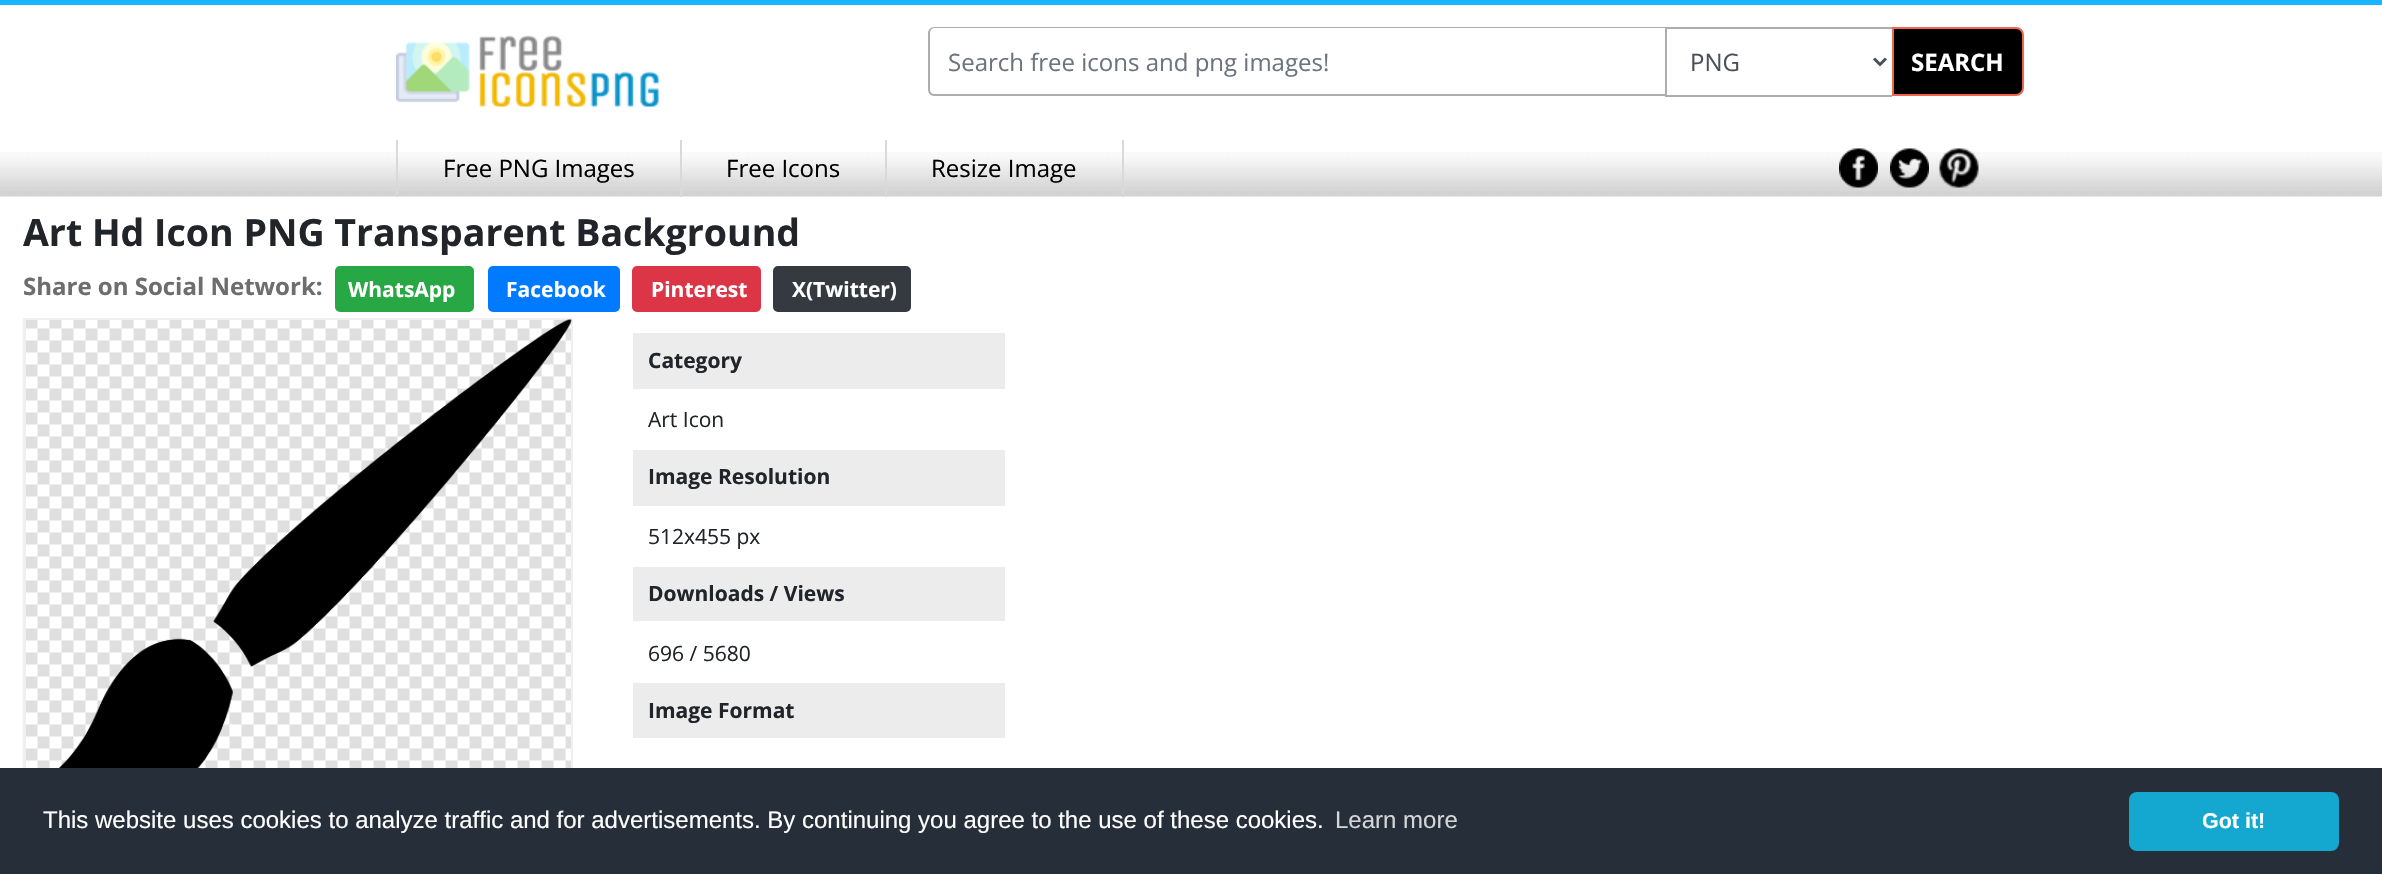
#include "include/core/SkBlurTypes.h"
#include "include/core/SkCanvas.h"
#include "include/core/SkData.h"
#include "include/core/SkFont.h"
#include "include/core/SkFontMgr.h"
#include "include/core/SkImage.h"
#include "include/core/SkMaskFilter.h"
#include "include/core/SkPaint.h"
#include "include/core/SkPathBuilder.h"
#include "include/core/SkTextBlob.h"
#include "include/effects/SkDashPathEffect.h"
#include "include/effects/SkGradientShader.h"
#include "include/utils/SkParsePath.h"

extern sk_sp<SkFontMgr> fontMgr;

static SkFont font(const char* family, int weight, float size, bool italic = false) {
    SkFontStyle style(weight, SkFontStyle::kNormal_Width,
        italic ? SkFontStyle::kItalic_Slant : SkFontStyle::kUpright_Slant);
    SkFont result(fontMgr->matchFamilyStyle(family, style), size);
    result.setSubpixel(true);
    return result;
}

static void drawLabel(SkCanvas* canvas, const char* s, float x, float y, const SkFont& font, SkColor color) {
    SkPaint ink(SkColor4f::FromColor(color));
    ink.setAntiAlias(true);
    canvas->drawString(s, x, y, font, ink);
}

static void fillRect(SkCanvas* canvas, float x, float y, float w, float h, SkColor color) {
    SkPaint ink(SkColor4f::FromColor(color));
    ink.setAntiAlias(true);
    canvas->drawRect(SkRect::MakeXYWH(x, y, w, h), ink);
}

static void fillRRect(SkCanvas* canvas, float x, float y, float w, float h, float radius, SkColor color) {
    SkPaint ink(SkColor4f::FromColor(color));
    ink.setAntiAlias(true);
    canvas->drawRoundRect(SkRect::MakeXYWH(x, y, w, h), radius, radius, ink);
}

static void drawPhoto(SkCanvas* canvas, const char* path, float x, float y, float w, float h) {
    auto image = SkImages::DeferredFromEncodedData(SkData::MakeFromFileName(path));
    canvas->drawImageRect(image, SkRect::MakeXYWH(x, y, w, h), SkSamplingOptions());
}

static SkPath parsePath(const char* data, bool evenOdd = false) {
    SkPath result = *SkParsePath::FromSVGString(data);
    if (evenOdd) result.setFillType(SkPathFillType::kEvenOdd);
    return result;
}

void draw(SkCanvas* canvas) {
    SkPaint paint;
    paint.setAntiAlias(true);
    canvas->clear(0xFFFFFFFF);
    fillRect(canvas, 0, 0, 2382, 5, 0xFF19B5FE);
    drawPhoto(canvas, "assets/img1.png", 396, 35, 263, 72);
    paint.setColor(0xFFADADAD);
    canvas->drawPath(parsePath("M934 27H1666V96H934C931 96 928 93 928 90V33C928 30 931 27 934 27ZM934 28H1666V94H934C932 94 930 92 930 90V33C930 31 932 28 934 28Z", true), paint);
    SkFont font1 = font("Open Sans", 400, 24);
    drawLabel(canvas, "Search free icons and png images!", 948, 71, font1, 0xFF6C757D);
    fillRect(canvas, 1665, 27, 227, 2, 0xFFADADAD);
    fillRect(canvas, 1665, 95, 227, 2, 0xFFADADAD);
    fillRect(canvas, 1665, 27, 2, 69, 0xFFADADAD);
    paint.setStroke(true);
    paint.setStrokeWidth(3);
    paint.setColor(0xFF495057);
    canvas->drawPath(parsePath("M1874 58.5L1880 64.5L1886 58.5"), paint);
    drawLabel(canvas, "PNG", 1690, 71, font1, 0xFF495057);
    paint.setStroke(false);
    paint.setColor(0xFF000000);
    canvas->drawPath(parsePath("M1893 28H2016C2020 28 2023 31 2023 35V88C2023 92 2020 95 2016 95H1893Z"), paint);
    paint.setStroke(true);
    paint.setStrokeWidth(2);
    paint.setColor(0xFFF2654E);
    canvas->drawPath(parsePath("M1893 28H2016C2020 28 2023 31 2023 35V88C2023 92 2020 95 2016 95H1893Z"), paint);
    SkFont font2 = font("Open Sans", 700, 24);
    drawLabel(canvas, "SEARCH", 1911, 71, font2, 0xFFFFFFFF);
    drawPhoto(canvas, "assets/img2.png", 0, 152, 2382, 45);
    fillRect(canvas, 396, 140, 2, 57, 0xFFD9D9D9);
    fillRect(canvas, 680, 140, 2, 57, 0xFFD9D9D9);
    drawLabel(canvas, "Free PNG Images", 443, 177, font1, 0xFF000000);
    fillRect(canvas, 885, 140, 2, 57, 0xFFD9D9D9);
    drawLabel(canvas, "Free Icons", 726, 177, font1, 0xFF000000);
    fillRect(canvas, 1122, 140, 2, 57, 0xFFD9D9D9);
    drawLabel(canvas, "Resize Image", 931, 177, font1, 0xFF000000);
    drawPhoto(canvas, "assets/img3.png", 1839, 148, 39, 40);
    drawPhoto(canvas, "assets/img4.png", 1890, 148, 39, 40);
    drawPhoto(canvas, "assets/img5.png", 1939, 148, 40, 40);
    SkFont font3 = font("Open Sans", 700, 37.5f);
    drawLabel(canvas, "Art Hd Icon PNG Transparent Background", 23, 246, font3, 0xFF212529);
    drawLabel(canvas, "Share on Social Network:", 23, 295, font2, 0xFF6D6D6E);
    paint.setStroke(false);
    paint.setColor(0xFF28A745);
    canvas->drawRoundRect(SkRect::MakeXYWH(336, 267, 137, 44), 4, 4, paint);
    paint.setStroke(true);
    canvas->drawRoundRect(SkRect::MakeXYWH(336, 267, 137, 44), 4, 4, paint);
    SkFont font4 = font("Open Sans", 700, 21);
    drawLabel(canvas, "WhatsApp", 348, 297, font4, 0xFFFFFFFF);
    paint.setStroke(false);
    paint.setColor(0xFF007BFF);
    canvas->drawRoundRect(SkRect::MakeXYWH(489, 267, 130, 44), 4, 4, paint);
    paint.setStroke(true);
    canvas->drawRoundRect(SkRect::MakeXYWH(489, 267, 130, 44), 4, 4, paint);
    drawLabel(canvas, "Facebook", 506, 297, font4, 0xFFFFFFFF);
    paint.setStroke(false);
    paint.setColor(0xFFDC3545);
    canvas->drawRoundRect(SkRect::MakeXYWH(633, 267, 127, 44), 4, 4, paint);
    paint.setStroke(true);
    canvas->drawRoundRect(SkRect::MakeXYWH(633, 267, 127, 44), 4, 4, paint);
    drawLabel(canvas, "Pinterest", 651, 297, font4, 0xFFFFFFFF);
    paint.setStroke(false);
    paint.setColor(0xFF343A40);
    canvas->drawRoundRect(SkRect::MakeXYWH(774, 267, 136, 44), 4, 4, paint);
    paint.setStroke(true);
    canvas->drawRoundRect(SkRect::MakeXYWH(774, 267, 136, 44), 4, 4, paint);
    drawLabel(canvas, "X(Twitter)", 792, 297, font4, 0xFFFFFFFF);
    drawPhoto(canvas, "assets/img6.png", 22, 318, 549, 450);
    paint.setColor(0xFFF0F0F0);
    canvas->drawRect(SkRect::MakeXYWH(24, 319, 548, 487), paint);
    drawPhoto(canvas, "assets/img7.png", 59, 319, 513, 449);
    fillRect(canvas, 633, 333, 372, 56, 0xFFECECEC);
    drawLabel(canvas, "Category", 648, 368, font4, 0xFF212529);
    SkFont font5 = font("Open Sans", 400, 21);
    drawLabel(canvas, "Art Icon", 648, 427, font5, 0xFF212529);
    fillRect(canvas, 633, 450, 372, 56, 0xFFECECEC);
    drawLabel(canvas, "Image Resolution", 648, 484, font4, 0xFF212529);
    drawLabel(canvas, "512x455 px", 648, 544, font5, 0xFF212529);
    fillRect(canvas, 633, 567, 372, 54, 0xFFECECEC);
    drawLabel(canvas, "Downloads / Views", 648, 601, font4, 0xFF212529);
    drawLabel(canvas, "696 / 5680", 648, 661, font5, 0xFF212529);
    fillRect(canvas, 633, 683, 372, 55, 0xFFECECEC);
    drawLabel(canvas, "Image Format", 648, 718, font4, 0xFF212529);
    fillRect(canvas, 0, 768, 2382, 106, 0xFF252E39);
    SkFont font6 = font("Liberation Sans", 400, 24);
    drawLabel(canvas, "This website uses cookies to analyze traffic and for advertisements. By continuing you agree to the use of these cookies.", 43, 828, font6, 0xFFFFFFFF);
    drawLabel(canvas, "Learn more", 1335, 828, font6, 0xFFD3D5D7);
    fillRRect(canvas, 2129, 792, 210, 59, 8, 0xFF14A7D0);
    SkFont font7 = font("Liberation Sans", 700, 21.5f);
    drawLabel(canvas, "Got it!", 2202, 828, font7, 0xFFFFFFFF);
}
